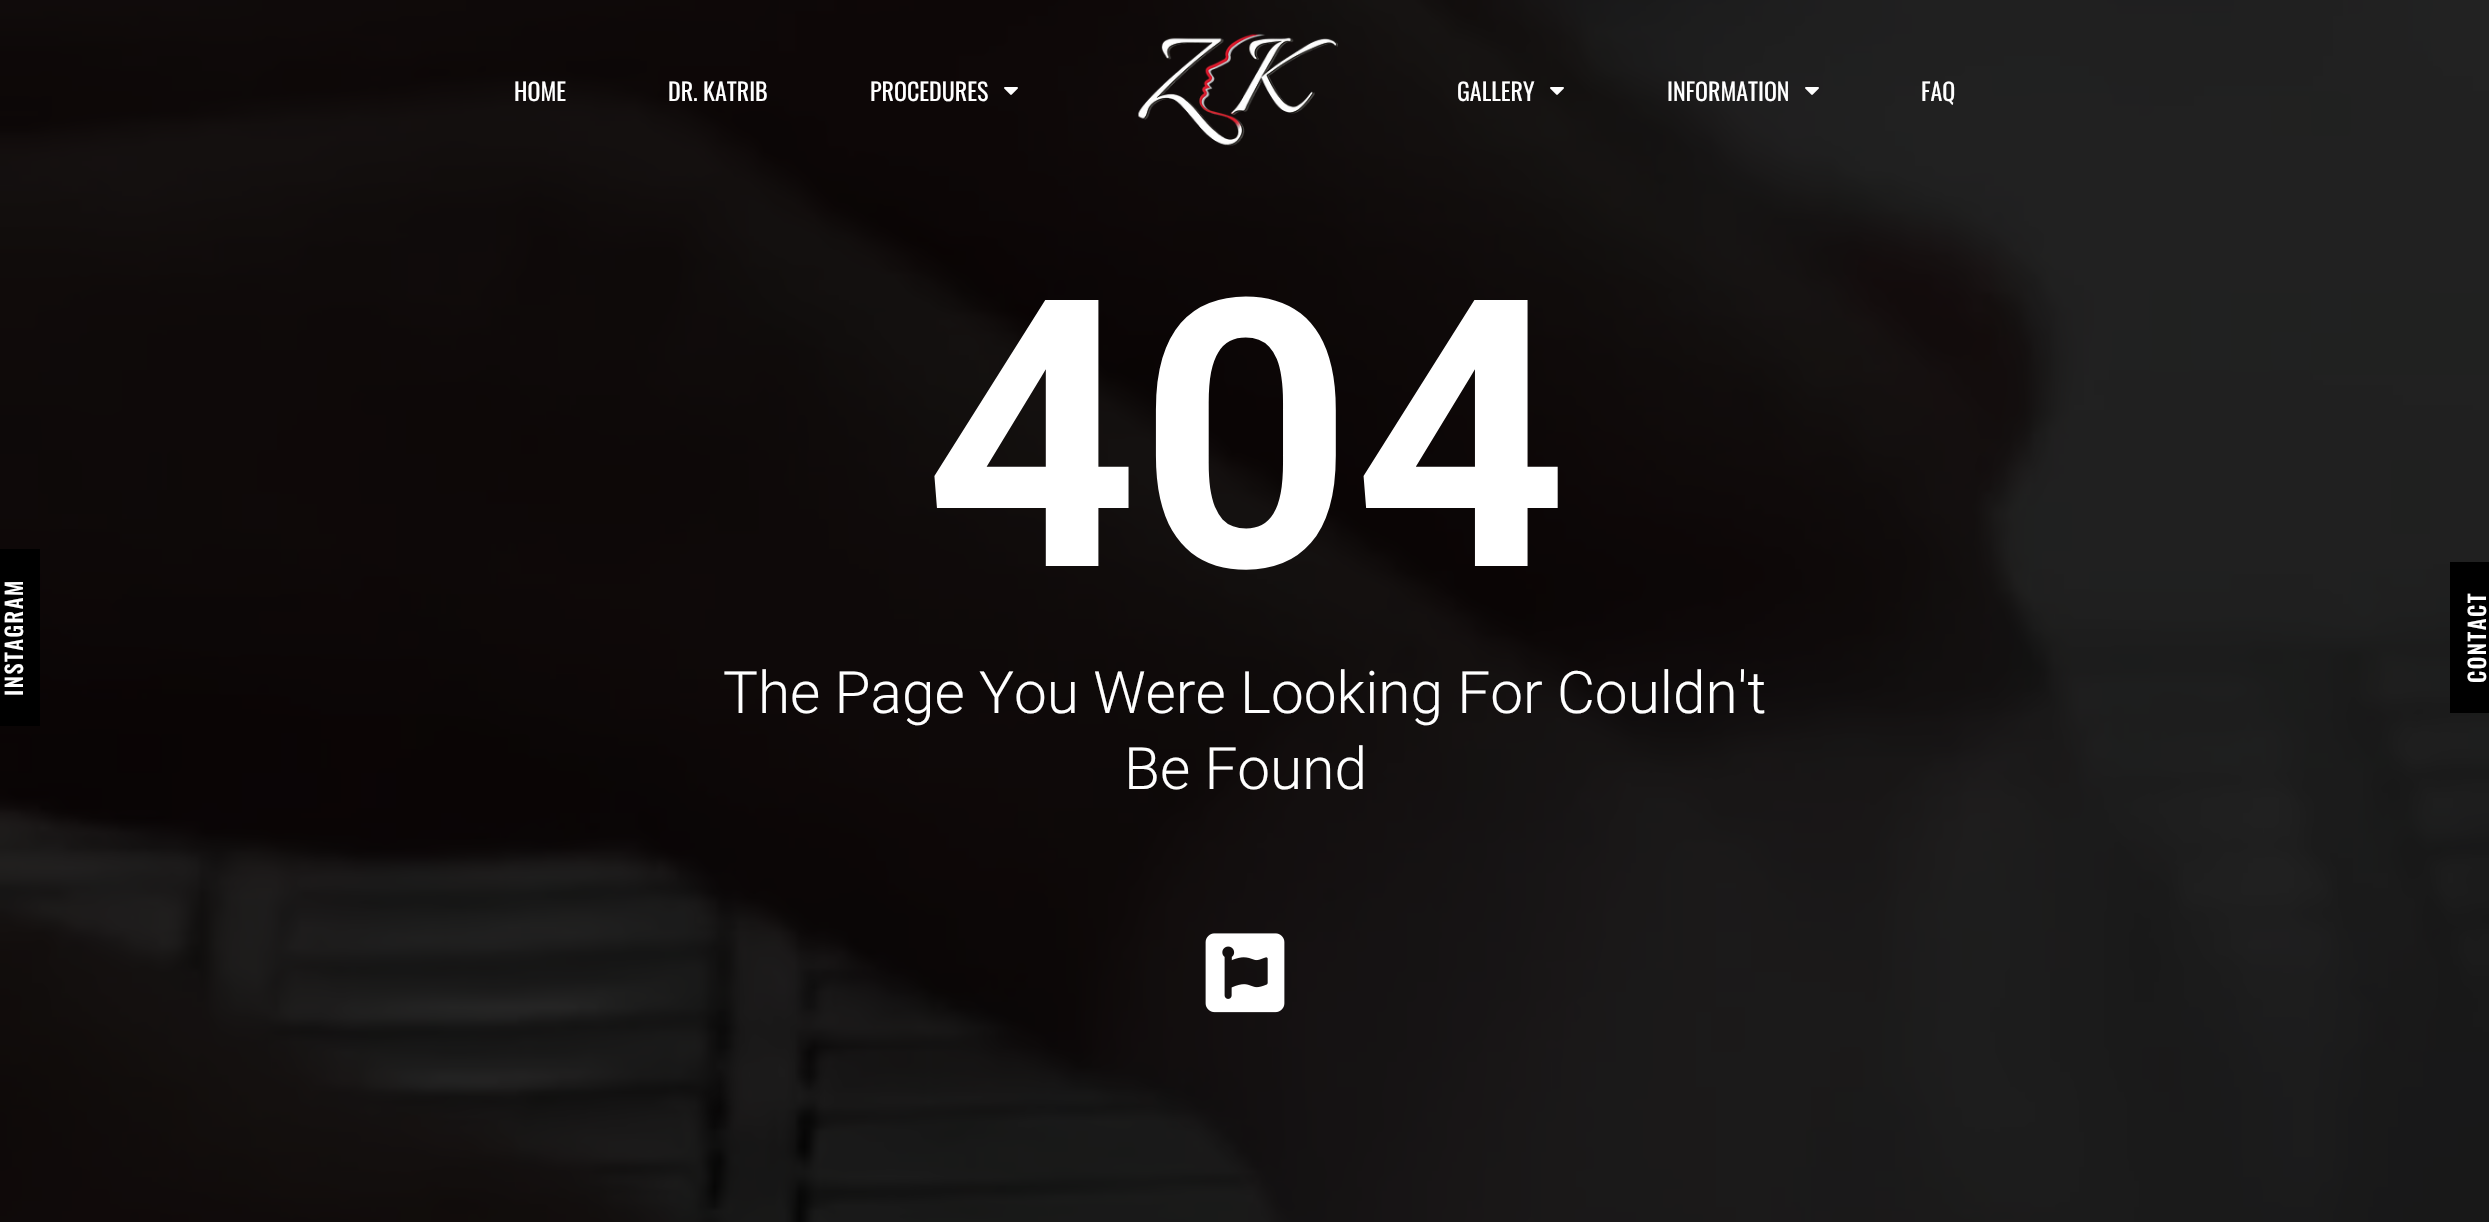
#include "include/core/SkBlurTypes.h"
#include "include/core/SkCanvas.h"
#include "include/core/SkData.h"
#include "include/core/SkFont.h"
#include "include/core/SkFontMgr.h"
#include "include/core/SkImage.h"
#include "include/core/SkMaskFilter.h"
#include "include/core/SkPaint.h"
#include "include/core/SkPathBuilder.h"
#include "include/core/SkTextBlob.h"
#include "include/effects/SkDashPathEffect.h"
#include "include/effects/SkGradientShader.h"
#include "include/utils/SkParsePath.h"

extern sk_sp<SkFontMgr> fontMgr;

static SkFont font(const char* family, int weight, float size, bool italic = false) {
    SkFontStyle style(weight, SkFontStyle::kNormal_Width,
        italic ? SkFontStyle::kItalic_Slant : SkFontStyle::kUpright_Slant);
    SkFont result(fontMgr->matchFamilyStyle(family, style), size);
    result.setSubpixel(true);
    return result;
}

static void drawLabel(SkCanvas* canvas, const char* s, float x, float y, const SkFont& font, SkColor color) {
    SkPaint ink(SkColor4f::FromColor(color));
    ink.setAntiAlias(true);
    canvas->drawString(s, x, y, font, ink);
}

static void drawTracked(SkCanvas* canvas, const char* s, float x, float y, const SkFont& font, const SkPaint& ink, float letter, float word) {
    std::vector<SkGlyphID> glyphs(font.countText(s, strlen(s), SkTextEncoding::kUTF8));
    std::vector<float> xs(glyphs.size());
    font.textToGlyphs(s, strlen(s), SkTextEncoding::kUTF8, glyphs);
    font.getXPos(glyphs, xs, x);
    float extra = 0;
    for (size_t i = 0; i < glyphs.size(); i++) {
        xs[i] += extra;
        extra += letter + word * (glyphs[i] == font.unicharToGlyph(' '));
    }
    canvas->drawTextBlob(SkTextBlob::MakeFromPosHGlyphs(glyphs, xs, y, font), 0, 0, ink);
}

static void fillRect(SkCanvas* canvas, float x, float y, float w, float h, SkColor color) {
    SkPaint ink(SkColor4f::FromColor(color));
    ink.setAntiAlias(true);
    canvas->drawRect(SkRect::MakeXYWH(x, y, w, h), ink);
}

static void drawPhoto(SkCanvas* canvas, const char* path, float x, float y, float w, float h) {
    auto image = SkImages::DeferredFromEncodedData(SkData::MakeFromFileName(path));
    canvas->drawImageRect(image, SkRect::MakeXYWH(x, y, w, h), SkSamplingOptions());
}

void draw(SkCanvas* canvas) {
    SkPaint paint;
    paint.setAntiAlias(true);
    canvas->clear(0xFFFFFFFF);
    drawPhoto(canvas, "assets/img5.png", 0, 0, 2489, 1222);
    SkFont font1 = font("Oswald", 400, 24);
    drawLabel(canvas, "HOME", 514, 101, font1, 0xFFFFFFFF);
    drawLabel(canvas, "DR. KATRIB", 668, 101, font1, 0xFFFFFFFF);
    drawLabel(canvas, "PROCEDURES", 870, 101, font1, 0xFFFFFFFF);
    drawPhoto(canvas, "assets/img1.png", 1004, 87, 14, 8);
    drawPhoto(canvas, "assets/img2.png", 1138, 33, 200, 113);
    drawLabel(canvas, "GALLERY", 1457, 101, font1, 0xFFFFFFFF);
    drawPhoto(canvas, "assets/img3.png", 1550, 87, 14, 8);
    drawLabel(canvas, "INFORMATION", 1667, 101, font1, 0xFFFFFFFF);
    drawPhoto(canvas, "assets/img4.png", 1805, 87, 14, 8);
    drawLabel(canvas, "FAQ", 1921, 101, font1, 0xFFFFFFFF);
    fillRect(canvas, 0, 549, 40, 177, 0xFF000000);
    SkFont font2 = font("Oswald", 500, 22.5f);
    paint.setColor(0xFFFFFFFF);
    canvas->save();
    canvas->rotate(-90, 23, 696);
    drawTracked(canvas, "INSTAGRAM", 23, 696, font2, paint, 1.5f, 0);
    canvas->restore();
    fillRect(canvas, 2450, 562, 39, 151, 0xFF000000);
    canvas->save();
    canvas->rotate(-90, 2486, 683);
    drawTracked(canvas, "CONTACT", 2486, 683, font2, paint, 1.5f, 0);
    canvas->restore();
    SkFont font3 = font("Roboto", 700, 374);
    drawLabel(canvas, "404", 924, 566, font3, 0xFFFFFFFF);
    SkFont font4 = font("Roboto", 300, 58.5f);
    drawLabel(canvas, "The Page You Were Looking For Couldn't", 723, 713, font4, 0xFFFFFFFF);
    drawLabel(canvas, "Be Found", 1124, 789, font4, 0xFFFFFFFF);
    drawPhoto(canvas, "assets/img6.png", 1205, 933, 80, 80);
}
